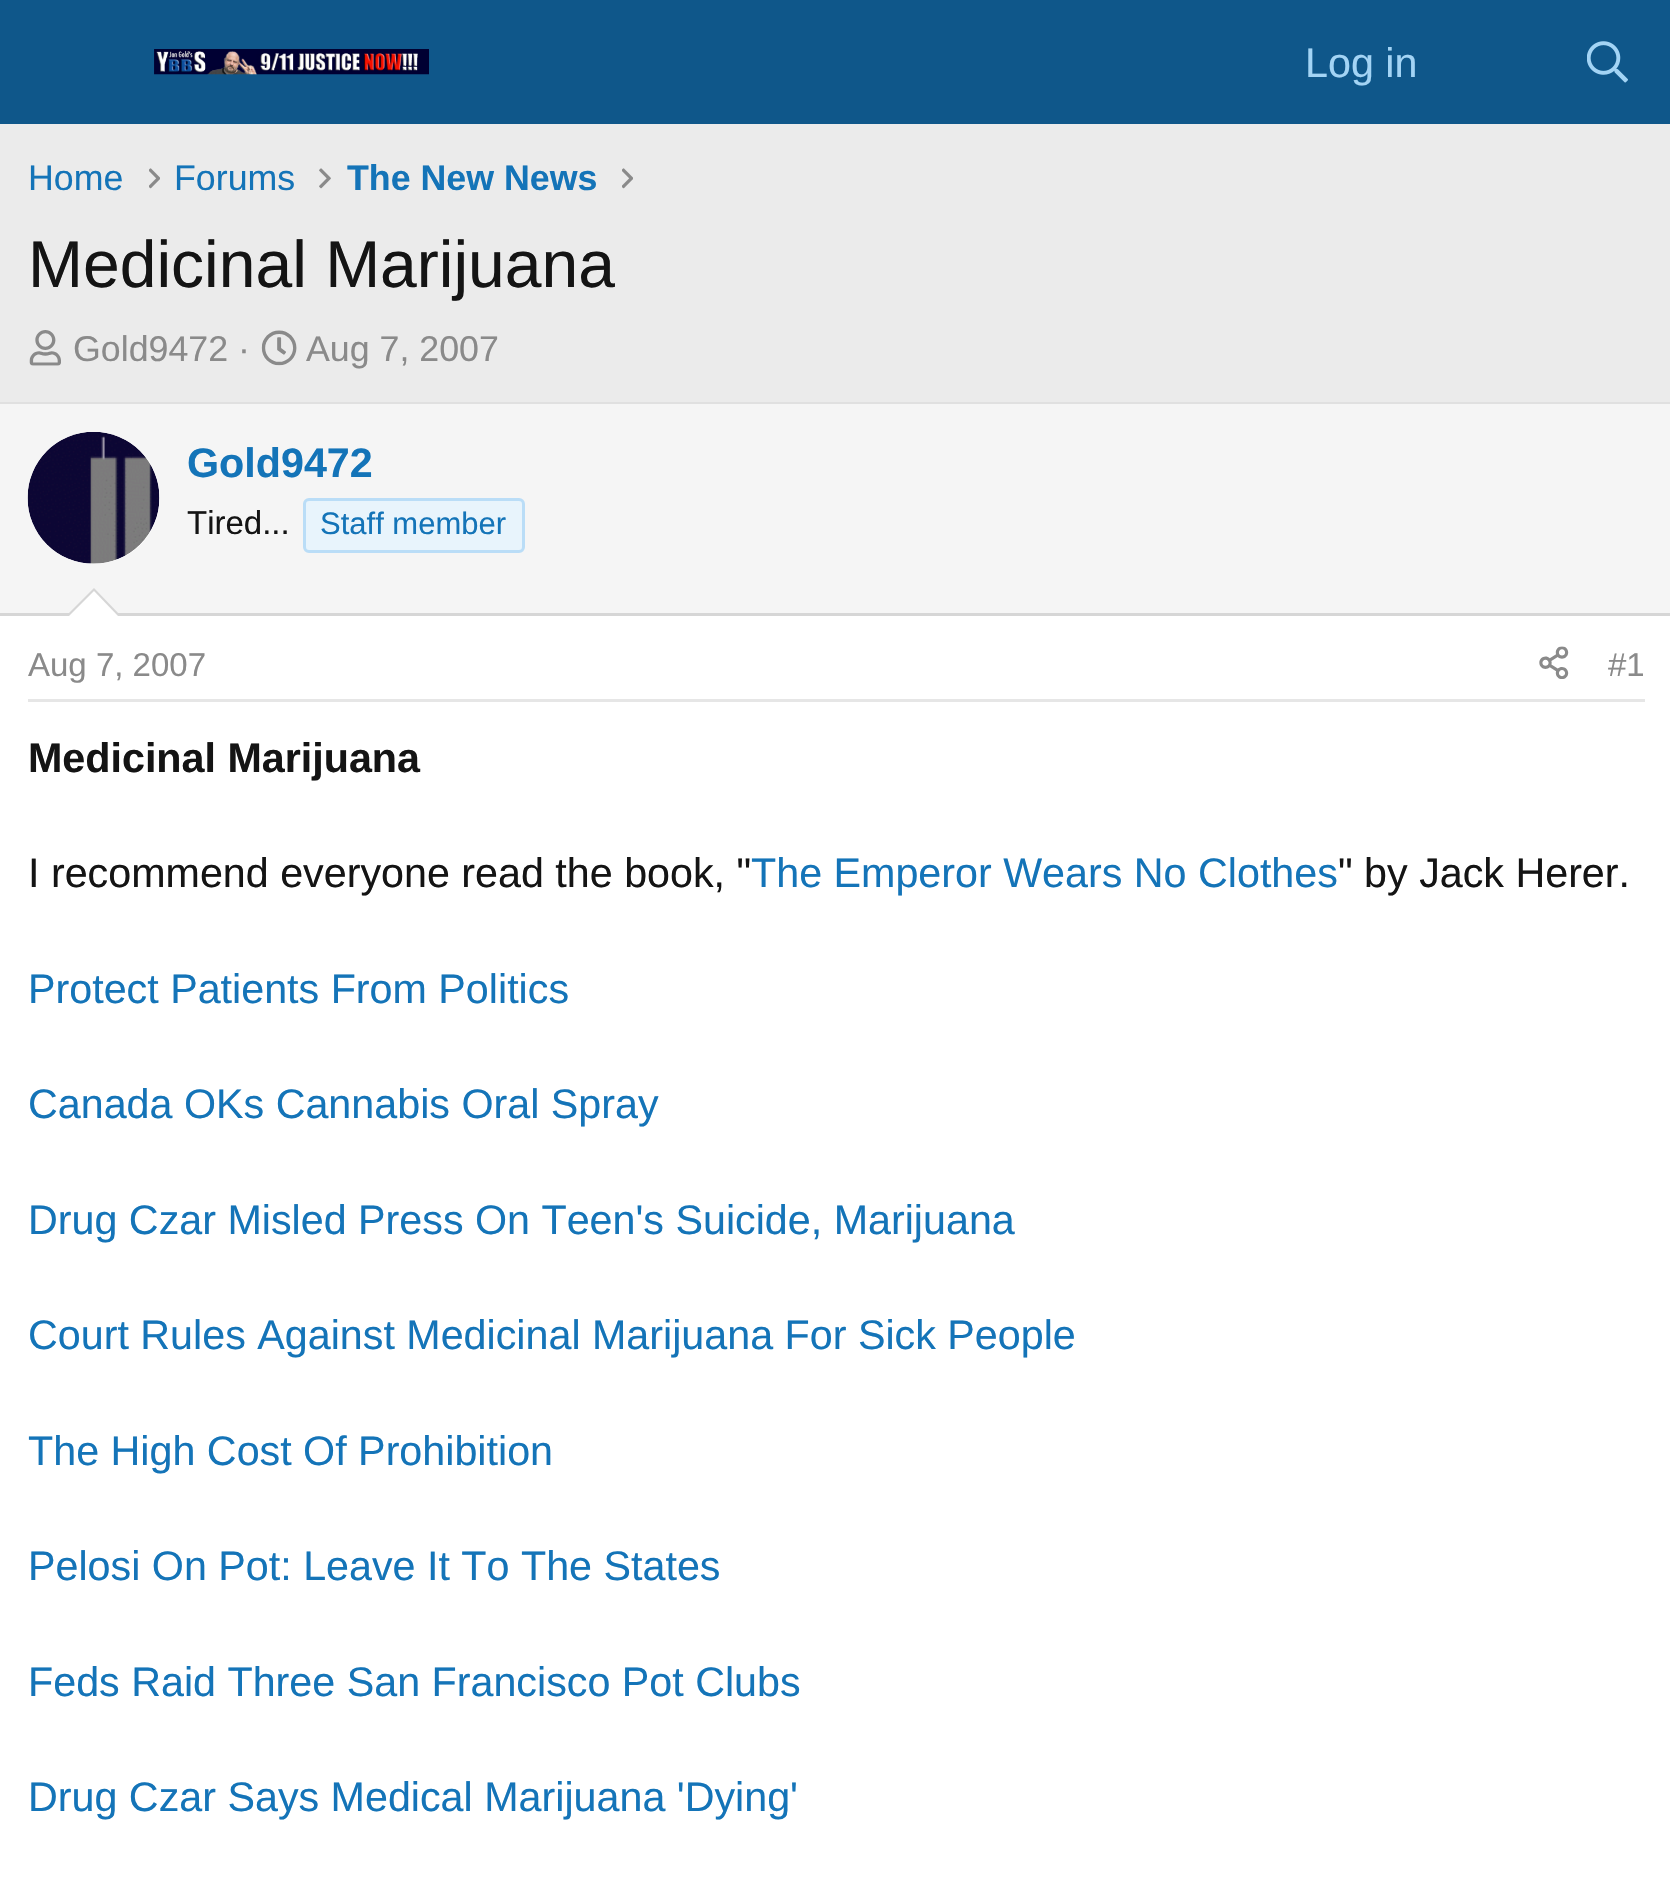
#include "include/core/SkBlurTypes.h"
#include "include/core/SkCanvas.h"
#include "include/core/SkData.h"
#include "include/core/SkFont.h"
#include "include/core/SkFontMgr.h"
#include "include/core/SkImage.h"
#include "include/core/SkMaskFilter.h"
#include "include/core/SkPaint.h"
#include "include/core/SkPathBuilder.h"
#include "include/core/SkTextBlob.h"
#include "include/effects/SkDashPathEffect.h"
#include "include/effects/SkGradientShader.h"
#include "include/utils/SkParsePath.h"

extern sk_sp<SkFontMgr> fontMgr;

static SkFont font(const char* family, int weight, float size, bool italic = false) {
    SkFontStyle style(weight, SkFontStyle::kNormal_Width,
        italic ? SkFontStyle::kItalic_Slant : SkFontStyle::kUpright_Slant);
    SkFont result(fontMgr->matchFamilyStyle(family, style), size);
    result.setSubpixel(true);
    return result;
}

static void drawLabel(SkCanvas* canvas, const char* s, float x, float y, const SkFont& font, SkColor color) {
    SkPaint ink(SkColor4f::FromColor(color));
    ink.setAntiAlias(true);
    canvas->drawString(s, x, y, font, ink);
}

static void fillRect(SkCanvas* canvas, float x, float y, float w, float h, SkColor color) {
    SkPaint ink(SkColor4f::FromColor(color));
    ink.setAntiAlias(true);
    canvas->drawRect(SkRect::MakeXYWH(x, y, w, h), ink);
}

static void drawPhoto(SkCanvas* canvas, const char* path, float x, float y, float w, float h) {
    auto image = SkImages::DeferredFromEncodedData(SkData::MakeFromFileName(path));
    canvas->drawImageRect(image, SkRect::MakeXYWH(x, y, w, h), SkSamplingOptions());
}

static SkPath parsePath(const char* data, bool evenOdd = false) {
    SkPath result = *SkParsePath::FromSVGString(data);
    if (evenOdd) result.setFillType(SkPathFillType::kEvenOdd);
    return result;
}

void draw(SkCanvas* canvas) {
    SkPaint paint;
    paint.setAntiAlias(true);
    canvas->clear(0xFFEBEBEB);
    fillRect(canvas, 0, 0, 1670, 124, 0xFF0F578A);
    drawPhoto(canvas, "assets/img1.png", 154, 49, 275, 26);
    SkFont font1 = font("Liberation Sans", 400, 41.25f);
    drawLabel(canvas, "Log in", 1305, 77, font1, 0xFFA3D4F5);
    drawPhoto(canvas, "assets/img2.png", 1587, 41, 41, 42);
    SkFont font2 = font("Liberation Sans", 400, 35.75f);
    drawLabel(canvas, "Home", 28, 190, font2, 0xFF1474B8);
    drawPhoto(canvas, "assets/img3.png", 149, 168, 11, 21);
    drawLabel(canvas, "Forums", 174, 190, font2, 0xFF1474B8);
    drawPhoto(canvas, "assets/img4.png", 319, 168, 12, 21);
    SkFont font3 = font("Liberation Sans", 700, 35.75f);
    drawLabel(canvas, "The New News", 347, 190, font3, 0xFF1474B8);
    drawPhoto(canvas, "assets/img3.png", 622, 168, 11, 21);
    SkFont font4 = font("Liberation Sans", 400, 66);
    drawLabel(canvas, "Medicinal Marijuana", 28, 287, font4, 0xFF141414);
    drawPhoto(canvas, "assets/img5.png", 29, 330, 32, 36);
    drawLabel(canvas, "Gold9472 ·", 73, 361, font2, 0xFF8A8A8A);
    drawPhoto(canvas, "assets/img6.png", 261, 330, 36, 36);
    drawLabel(canvas, "Aug 7, 2007", 306, 361, font2, 0xFF8A8A8A);
    fillRect(canvas, 0, 616, 1670, 1282, 0xFFFFFFFF);
    fillRect(canvas, 0, 402, 1670, 2, 0xFFE0E0E0);
    fillRect(canvas, 0, 404, 1670, 209, 0xFFF5F5F5);
    fillRect(canvas, 0, 613, 1670, 3, 0xFFD6D6D6);
    paint.setColor(0xFFFFFFFF);
    canvas->drawCircle(94, 498, 66, paint);
    drawPhoto(canvas, "assets/img7.png", 27, 432, 133, 132);
    SkFont font5 = font("Liberation Sans", 700, 41.25f);
    drawLabel(canvas, "Gold9472", 187, 477, font5, 0xFF1474B8);
    SkFont font6 = font("Liberation Sans", 400, 33);
    drawLabel(canvas, "Tired...", 187, 534, font6, 0xFF141414);
    paint.setColor(0xFFE8F4FC);
    canvas->drawRoundRect(SkRect::MakeXYWH(304.5f, 499.5f, 219, 52), 4.5f, 4.5f, paint);
    paint.setStroke(true);
    paint.setStrokeWidth(3);
    paint.setColor(0xFFBADDF7);
    canvas->drawRoundRect(SkRect::MakeXYWH(304.5f, 499.5f, 219, 52), 4.5f, 4.5f, paint);
    SkFont font7 = font("Liberation Sans", 400, 31);
    drawLabel(canvas, "Staff member", 320, 534, font7, 0xFF1474B8);
    paint.setStroke(false);
    paint.setColor(0xFFD6D6D6);
    canvas->drawPath(parsePath("M121 616H66L94 588Z"), paint);
    paint.setColor(0xFFFFFFFF);
    canvas->drawPath(parsePath("M118 616H69L94 591Z"), paint);
    fillRect(canvas, 28, 699, 1617, 3, 0xFFE6E6E6);
    drawLabel(canvas, "Aug 7, 2007", 28, 676, font6, 0xFF8A8A8A);
    drawPhoto(canvas, "assets/img8.png", 1539, 646, 30, 33);
    drawLabel(canvas, "#1", 1608, 676, font6, 0xFF8A8A8A);
    drawLabel(canvas, "Medicinal Marijuana", 28, 772, font5, 0xFF141414);
    drawLabel(canvas, "I recommend everyone read the book, \"", 28, 887, font1, 0xFF141414);
    drawLabel(canvas, "The Emperor Wears No Clothes", 751, 887, font1, 0xFF1474B8);
    drawLabel(canvas, "\" by Jack Herer.", 1338, 887, font1, 0xFF141414);
    drawLabel(canvas, "Protect Patients From Politics", 28, 1003, font1, 0xFF1474B8);
    drawLabel(canvas, "Canada OKs Cannabis Oral Spray", 28, 1118, font1, 0xFF1474B8);
    drawLabel(canvas, "Drug Czar Misled Press On Teen's Suicide, Marijuana", 28, 1234, font1, 0xFF1474B8);
    drawLabel(canvas, "Court Rules Against Medicinal Marijuana For Sick People", 28, 1349, font1, 0xFF1474B8);
    drawLabel(canvas, "The High Cost Of Prohibition", 28, 1465, font1, 0xFF1474B8);
    drawLabel(canvas, "Pelosi On Pot: Leave It To The States", 28, 1580, font1, 0xFF1474B8);
    drawLabel(canvas, "Feds Raid Three San Francisco Pot Clubs", 28, 1696, font1, 0xFF1474B8);
    drawLabel(canvas, "Drug Czar Says Medical Marijuana 'Dying'", 28, 1811, font1, 0xFF1474B8);
}
